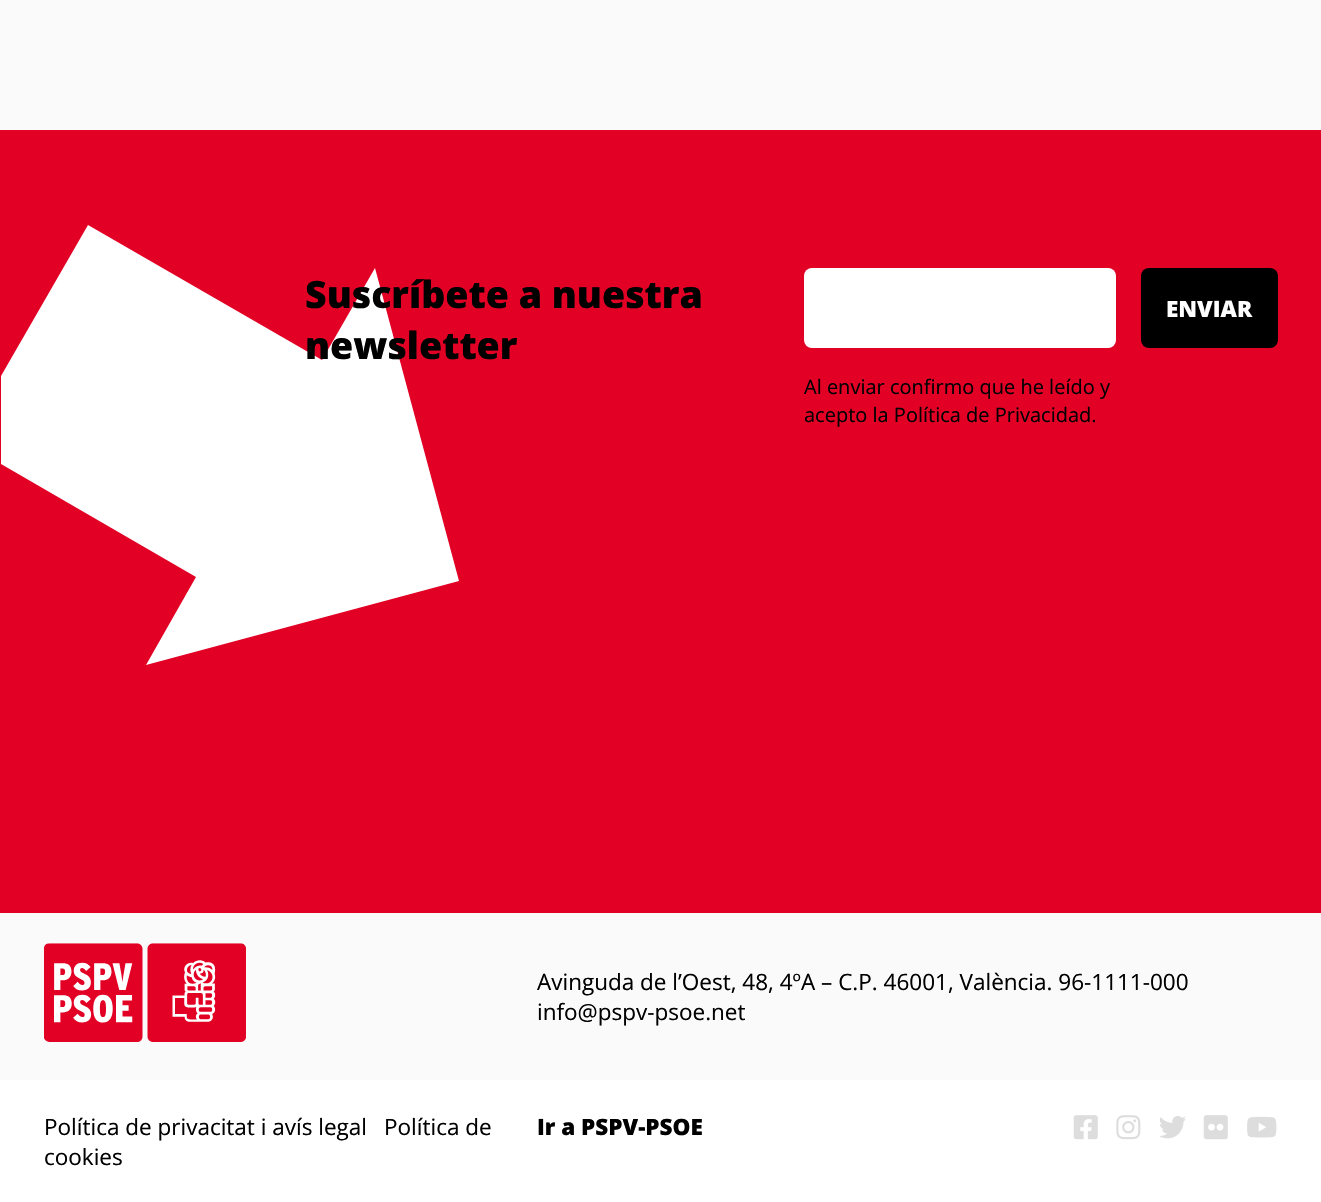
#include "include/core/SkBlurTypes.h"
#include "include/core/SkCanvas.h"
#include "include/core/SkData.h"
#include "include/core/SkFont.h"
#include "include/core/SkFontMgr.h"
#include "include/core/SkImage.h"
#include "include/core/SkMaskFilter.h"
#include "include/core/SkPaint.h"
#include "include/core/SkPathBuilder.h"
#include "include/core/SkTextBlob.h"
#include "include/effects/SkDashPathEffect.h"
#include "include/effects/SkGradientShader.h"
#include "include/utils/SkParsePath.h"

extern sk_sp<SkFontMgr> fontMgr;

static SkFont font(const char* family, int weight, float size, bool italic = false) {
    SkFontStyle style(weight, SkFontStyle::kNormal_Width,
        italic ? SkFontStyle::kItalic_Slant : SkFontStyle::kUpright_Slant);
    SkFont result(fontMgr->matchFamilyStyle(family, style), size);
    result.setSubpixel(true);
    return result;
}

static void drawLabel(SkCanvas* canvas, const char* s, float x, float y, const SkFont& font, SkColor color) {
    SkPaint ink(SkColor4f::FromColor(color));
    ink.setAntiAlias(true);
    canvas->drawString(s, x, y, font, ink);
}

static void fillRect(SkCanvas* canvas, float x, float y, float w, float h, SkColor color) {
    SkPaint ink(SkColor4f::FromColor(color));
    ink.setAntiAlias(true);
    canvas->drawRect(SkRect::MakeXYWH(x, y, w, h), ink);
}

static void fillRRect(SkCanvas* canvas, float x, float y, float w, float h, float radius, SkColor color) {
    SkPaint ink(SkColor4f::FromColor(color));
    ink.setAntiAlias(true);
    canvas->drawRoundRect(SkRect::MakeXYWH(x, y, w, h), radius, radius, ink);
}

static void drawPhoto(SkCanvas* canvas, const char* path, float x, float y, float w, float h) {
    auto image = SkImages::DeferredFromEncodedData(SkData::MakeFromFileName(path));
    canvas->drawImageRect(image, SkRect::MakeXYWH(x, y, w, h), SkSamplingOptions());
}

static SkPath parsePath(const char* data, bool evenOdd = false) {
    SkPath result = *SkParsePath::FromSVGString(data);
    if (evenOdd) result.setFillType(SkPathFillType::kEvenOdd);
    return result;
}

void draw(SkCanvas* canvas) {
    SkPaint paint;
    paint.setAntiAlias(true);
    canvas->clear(0xFFFFFFFF);
    fillRect(canvas, 0, 0, 1321, 130, 0xFFFAFAFA);
    fillRect(canvas, 0, 130, 1321, 783, 0xFFE20025);
    paint.setColor(0xFFFFFFFF);
    canvas->drawPath(parsePath("M146 665L196 577L1 464V376L88 225L322 360L375 268L459 581Z"), paint);
    SkFont font1 = font("Open Sans", 800, 37.5f);
    drawLabel(canvas, "Suscríbete a nuestra", 305, 308, font1, 0xFF000000);
    drawLabel(canvas, "newsletter", 305, 359, font1, 0xFF000000);
    fillRRect(canvas, 804, 268, 312, 80, 8, 0xFFFFFFFF);
    fillRRect(canvas, 1141, 268, 137, 80, 8, 0xFF000000);
    SkFont font2 = font("Open Sans", 800, 22.5f);
    drawLabel(canvas, "ENVIAR", 1166, 317, font2, 0xFFFFFFFF);
    SkFont font3 = font("Open Sans", 400, 20);
    drawLabel(canvas, "Al enviar confirmo que he leído y", 804, 394, font3, 0xFF000000);
    drawLabel(canvas, "acepto la Política de Privacidad.", 804, 422, font3, 0xFF000000);
    fillRect(canvas, 0, 913, 1321, 167, 0xFFFAFAFA);
    drawPhoto(canvas, "assets/img1.png", 44, 943, 202, 99);
    SkFont font4 = font("Open Sans", 400, 22.5f);
    drawLabel(canvas, "Avinguda de l’Oest, 48, 4ºA – C.P. 46001, València. 96-1111-000", 537, 990, font4, 0xFF000000);
    drawLabel(canvas, "info@pspv-psoe.net", 537, 1020, font4, 0xFF000000);
    drawLabel(canvas, "Política de privacitat i avís legal", 44, 1135, font4, 0xFF000000);
    drawLabel(canvas, "Política de", 384, 1135, font4, 0xFF000000);
    drawLabel(canvas, "cookies", 44, 1165, font4, 0xFF000000);
    drawLabel(canvas, "Ir a PSPV-PSOE", 537, 1135, font2, 0xFF000000);
    drawPhoto(canvas, "assets/img2.png", 1073, 1115, 25, 25);
    drawPhoto(canvas, "assets/img3.png", 1116, 1115, 25, 25);
    drawPhoto(canvas, "assets/img4.png", 1159, 1116, 27, 23);
    drawPhoto(canvas, "assets/img5.png", 1203, 1115, 25, 25);
    drawPhoto(canvas, "assets/img6.png", 1247, 1116, 30, 22);
}
